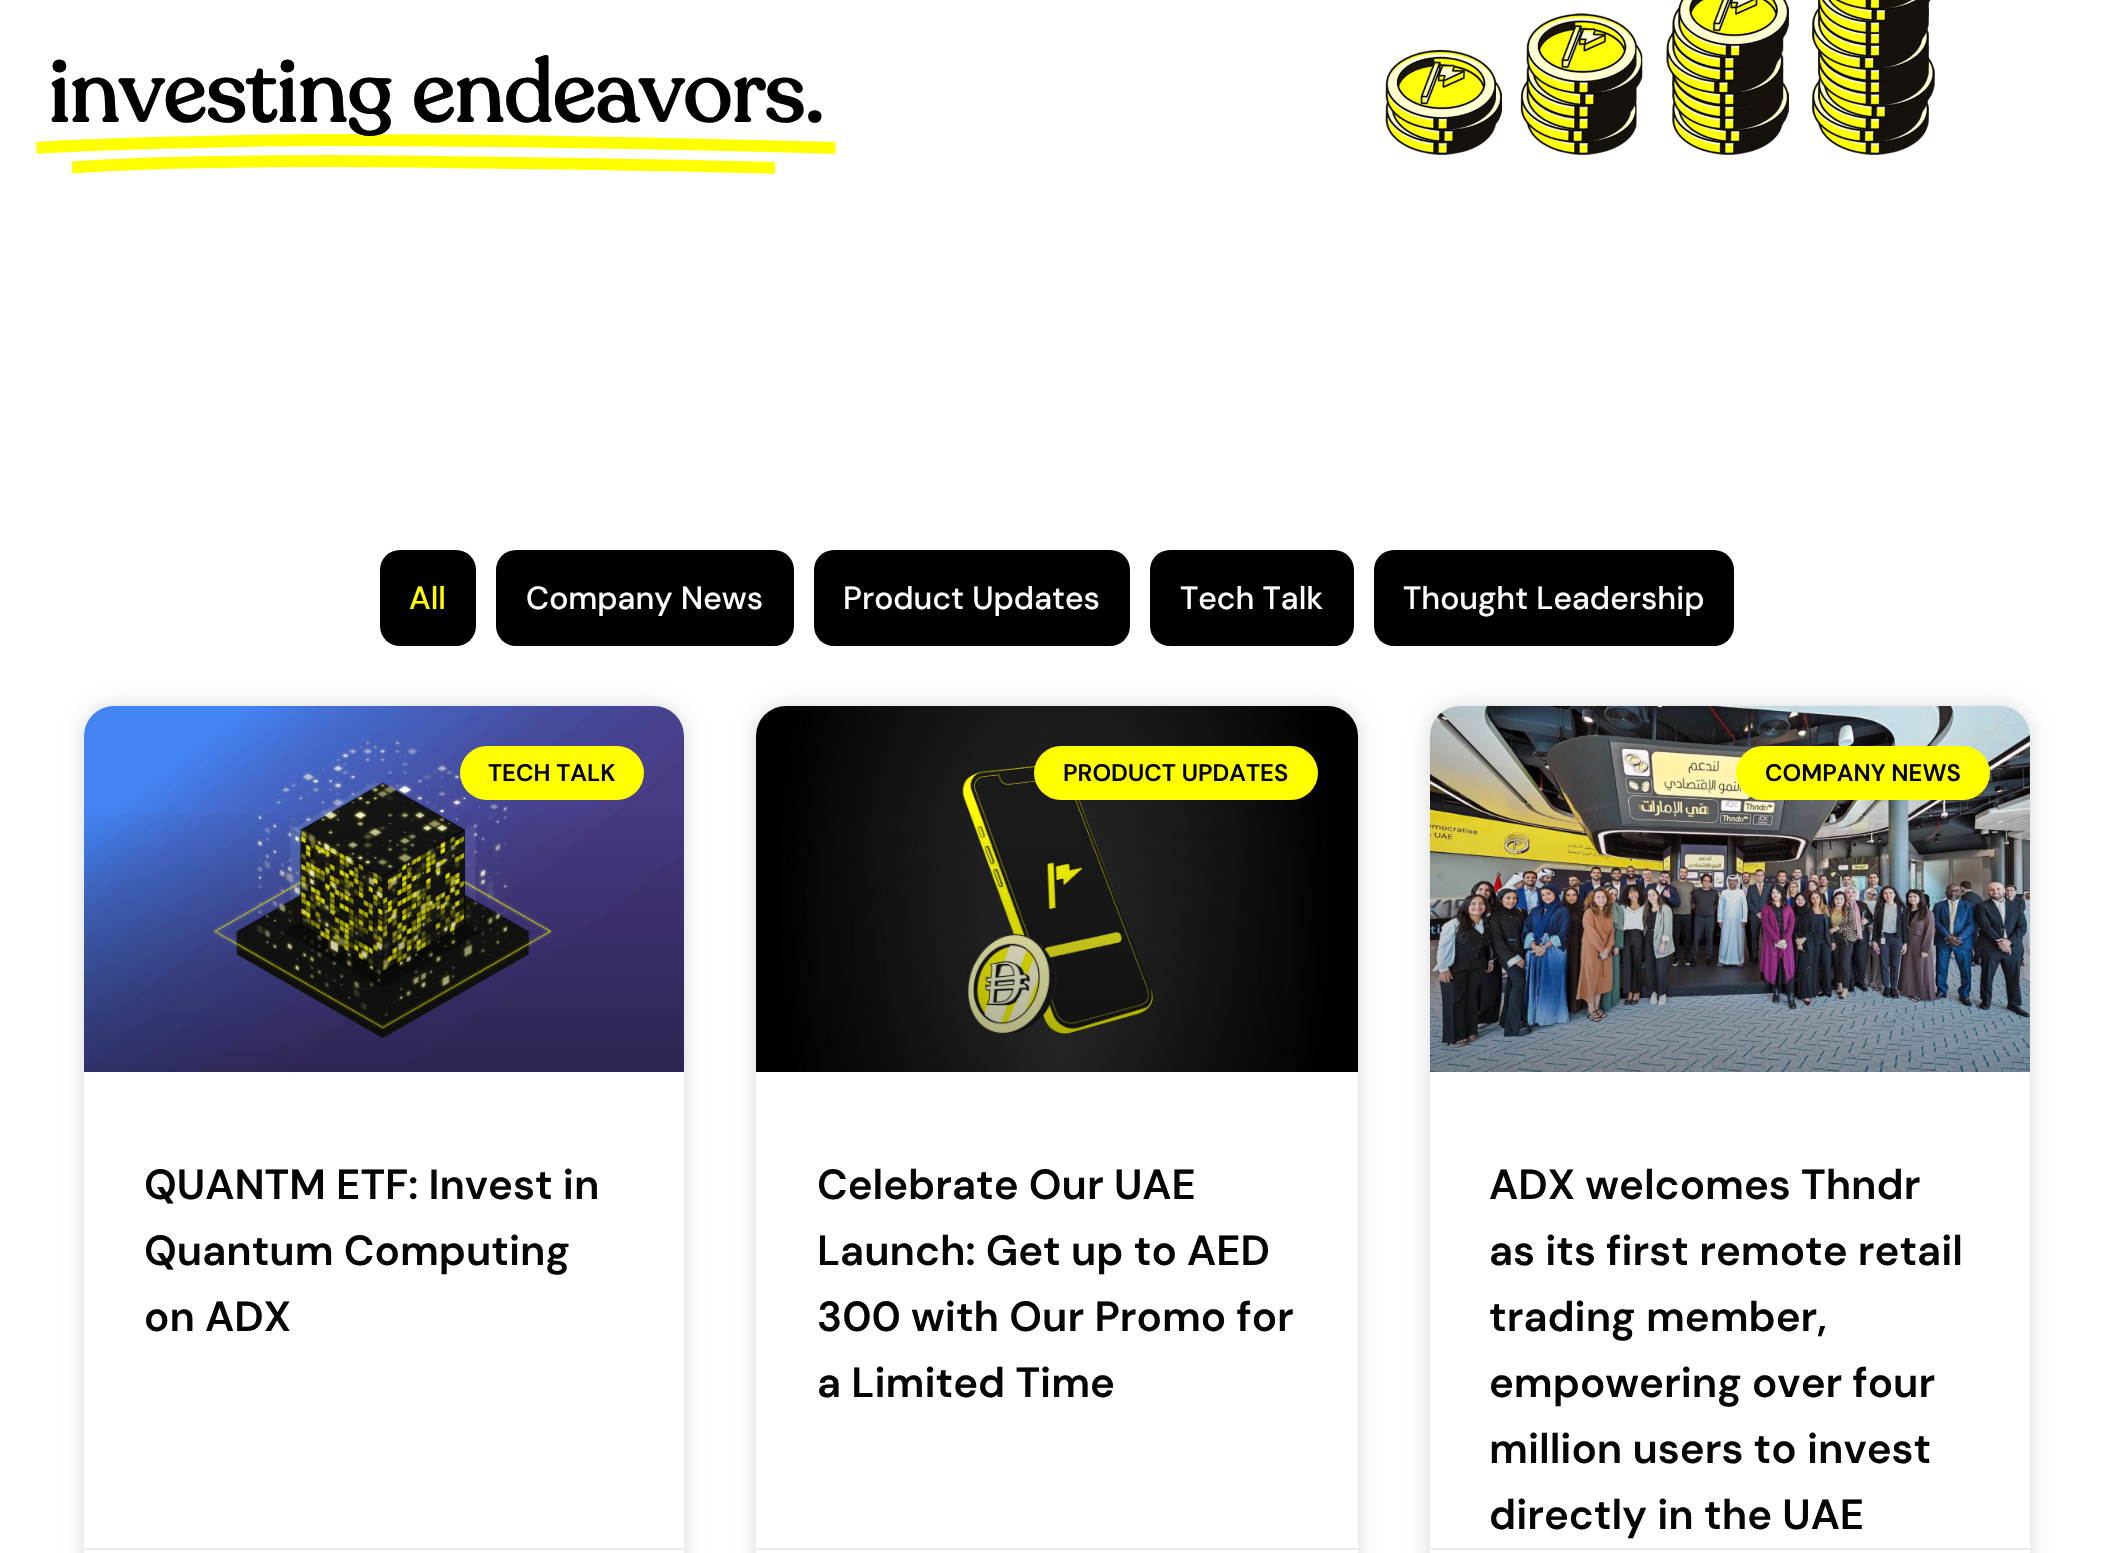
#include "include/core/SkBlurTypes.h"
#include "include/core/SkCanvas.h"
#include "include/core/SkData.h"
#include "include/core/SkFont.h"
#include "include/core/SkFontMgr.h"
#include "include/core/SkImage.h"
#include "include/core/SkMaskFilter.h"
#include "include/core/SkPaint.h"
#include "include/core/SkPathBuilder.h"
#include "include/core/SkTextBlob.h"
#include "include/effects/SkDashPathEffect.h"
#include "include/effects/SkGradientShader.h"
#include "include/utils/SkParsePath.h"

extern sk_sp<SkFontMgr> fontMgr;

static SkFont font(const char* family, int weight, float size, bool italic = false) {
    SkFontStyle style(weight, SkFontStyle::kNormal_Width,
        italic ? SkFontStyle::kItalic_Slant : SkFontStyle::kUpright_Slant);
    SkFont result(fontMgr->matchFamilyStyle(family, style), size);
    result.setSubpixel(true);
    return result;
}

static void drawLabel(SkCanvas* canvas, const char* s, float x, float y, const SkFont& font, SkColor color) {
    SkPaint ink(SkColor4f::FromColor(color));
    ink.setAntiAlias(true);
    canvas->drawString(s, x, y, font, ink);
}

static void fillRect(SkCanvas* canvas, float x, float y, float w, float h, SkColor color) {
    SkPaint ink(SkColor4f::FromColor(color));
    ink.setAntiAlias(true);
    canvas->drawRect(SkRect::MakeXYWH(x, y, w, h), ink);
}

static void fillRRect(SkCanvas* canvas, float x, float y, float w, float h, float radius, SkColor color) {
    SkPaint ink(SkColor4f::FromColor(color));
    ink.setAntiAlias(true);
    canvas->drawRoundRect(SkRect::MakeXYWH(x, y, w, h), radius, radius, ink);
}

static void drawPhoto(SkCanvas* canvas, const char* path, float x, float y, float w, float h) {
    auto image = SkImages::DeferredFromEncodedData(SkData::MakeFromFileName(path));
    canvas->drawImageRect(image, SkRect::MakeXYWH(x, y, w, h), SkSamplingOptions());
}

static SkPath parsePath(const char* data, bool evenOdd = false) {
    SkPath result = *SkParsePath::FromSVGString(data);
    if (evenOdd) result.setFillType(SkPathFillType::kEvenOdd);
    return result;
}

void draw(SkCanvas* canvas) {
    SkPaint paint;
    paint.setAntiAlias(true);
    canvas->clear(0xFFFFFFFF);
    paint.setStroke(true);
    paint.setStrokeWidth(11.9f);
    paint.setColor(0xFFFFFF00);
    canvas->drawPath(parsePath("M36.5 148C86.5 144 261.5 140 325.5 140C516.5 140 737 145 835.5 148"), paint);
    SkFont font1 = font("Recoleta", 700, 86);
    drawLabel(canvas, "investing endeavors.", 48, 122, font1, 0xFF000000);
    canvas->drawPath(parsePath("M72 167.5C162 161 277.5 161 336.5 161C412.5 161.5 669 164.5 775 168"), paint);
    drawPhoto(canvas, "assets/img1.png", 1385, 0, 550, 155);
    fillRRect(canvas, 380, 550, 96, 96, 20, 0xFF000000);
    SkFont font2 = font("DM Sans", 500, 32);
    drawLabel(canvas, "All", 409, 609, font2, 0xFFFFFF00);
    fillRRect(canvas, 496, 550, 298, 96, 20, 0xFF000000);
    drawLabel(canvas, "Company News", 526, 609, font2, 0xFFFFFFFF);
    fillRRect(canvas, 814, 550, 316, 96, 20, 0xFF000000);
    drawLabel(canvas, "Product Updates", 843, 609, font2, 0xFFFFFFFF);
    fillRRect(canvas, 1150, 550, 204, 96, 20, 0xFF000000);
    drawLabel(canvas, "Tech Talk", 1180, 609, font2, 0xFFFFFFFF);
    fillRRect(canvas, 1374, 550, 360, 96, 20, 0xFF000000);
    drawLabel(canvas, "Thought Leadership", 1403, 609, font2, 0xFFFFFFFF);
    paint.setStroke(false);
    paint.setColor(0x26000000);
    paint.setMaskFilter(SkMaskFilter::MakeBlur(kNormal_SkBlurStyle, 10));
    canvas->drawRoundRect(SkRect::MakeXYWH(84, 706, 600, 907), 30, 30, paint);
    paint.setMaskFilter(nullptr);
    fillRRect(canvas, 84, 706, 600, 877, 30, 0xFFFFFFFF);
    drawPhoto(canvas, "assets/img2.png", 84, 706, 600, 366);
    {
        const SkColor colors[] = {0x59000000, 0x00000000};
        const float stops[] = {0, 0.75f};
        const SkPoint ends[] = {{384, 1072}, {384, 706}};
        paint.setShader(SkGradientShader::MakeLinear(ends, colors, stops, 2, SkTileMode::kClamp));
        paint.setAlpha(255);
    }
    canvas->drawRect(SkRect::MakeXYWH(84, 814, 600, 258), paint);
    fillRRect(canvas, 460, 746, 184, 54, 27, 0xFFFFFF00);
    SkFont font3 = font("DM Sans", 600, 24);
    drawLabel(canvas, "TECH TALK", 488, 781, font3, 0xFF000000);
    SkFont font4 = font("DM Sans", 600, 42);
    drawLabel(canvas, "QUANTM ETF: Invest in", 144, 1199, font4, 0xFF060606);
    drawLabel(canvas, "Quantum Computing", 144, 1265, font4, 0xFF060606);
    drawLabel(canvas, "on ADX", 144, 1331, font4, 0xFF060606);
    fillRect(canvas, 84, 1548, 600, 2, 0xFFEAEAEA);
    paint.setShader(nullptr);
    paint.setColor(0x26000000);
    paint.setMaskFilter(SkMaskFilter::MakeBlur(kNormal_SkBlurStyle, 10));
    canvas->drawRoundRect(SkRect::MakeXYWH(756, 706, 602, 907), 30, 30, paint);
    paint.setMaskFilter(nullptr);
    fillRRect(canvas, 756, 706, 602, 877, 30, 0xFFFFFFFF);
    drawPhoto(canvas, "assets/img3.png", 756, 706, 602, 366);
    {
        const SkColor colors[] = {0x59000000, 0x00000000};
        const float stops[] = {0, 0.75f};
        const SkPoint ends[] = {{1057, 1072}, {1057, 706}};
        paint.setShader(SkGradientShader::MakeLinear(ends, colors, stops, 2, SkTileMode::kClamp));
        paint.setAlpha(255);
    }
    canvas->drawRect(SkRect::MakeXYWH(825, 814, 460, 258), paint);
    fillRRect(canvas, 1034, 746, 284, 54, 27, 0xFFFFFF00);
    drawLabel(canvas, "PRODUCT UPDATES", 1063, 781, font3, 0xFF000000);
    drawLabel(canvas, "Celebrate Our UAE", 817, 1199, font4, 0xFF060606);
    drawLabel(canvas, "Launch: Get up to AED", 817, 1265, font4, 0xFF060606);
    drawLabel(canvas, "300 with Our Promo for", 817, 1331, font4, 0xFF060606);
    drawLabel(canvas, "a Limited Time", 817, 1397, font4, 0xFF060606);
    fillRect(canvas, 756, 1548, 602, 2, 0xFFEAEAEA);
    paint.setShader(nullptr);
    paint.setColor(0x26000000);
    paint.setMaskFilter(SkMaskFilter::MakeBlur(kNormal_SkBlurStyle, 10));
    canvas->drawRoundRect(SkRect::MakeXYWH(1430, 706, 600, 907), 30, 30, paint);
    paint.setMaskFilter(nullptr);
    fillRRect(canvas, 1430, 706, 600, 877, 30, 0xFFFFFFFF);
    drawPhoto(canvas, "assets/img4.png", 1430, 706, 600, 366);
    {
        const SkColor colors[] = {0x59000000, 0x00000000};
        const float stops[] = {0, 0.75f};
        const SkPoint ends[] = {{1730, 1072}, {1730, 706}};
        paint.setShader(SkGradientShader::MakeLinear(ends, colors, stops, 2, SkTileMode::kClamp));
        paint.setAlpha(255);
    }
    canvas->drawRect(SkRect::MakeXYWH(1430, 814, 600, 258), paint);
    fillRRect(canvas, 1736, 746, 254, 54, 27, 0xFFFFFF00);
    drawLabel(canvas, "COMPANY NEWS", 1765, 781, font3, 0xFF000000);
    drawLabel(canvas, "ADX welcomes Thndr", 1489, 1199, font4, 0xFF060606);
    drawLabel(canvas, "as its first remote retail", 1489, 1265, font4, 0xFF060606);
    drawLabel(canvas, "trading member,", 1489, 1331, font4, 0xFF060606);
    drawLabel(canvas, "empowering over four", 1489, 1397, font4, 0xFF060606);
    drawLabel(canvas, "million users to invest", 1489, 1463, font4, 0xFF060606);
    drawLabel(canvas, "directly in the UAE", 1489, 1529, font4, 0xFF060606);
    fillRect(canvas, 1430, 1548, 600, 2, 0xFFEAEAEA);
}
